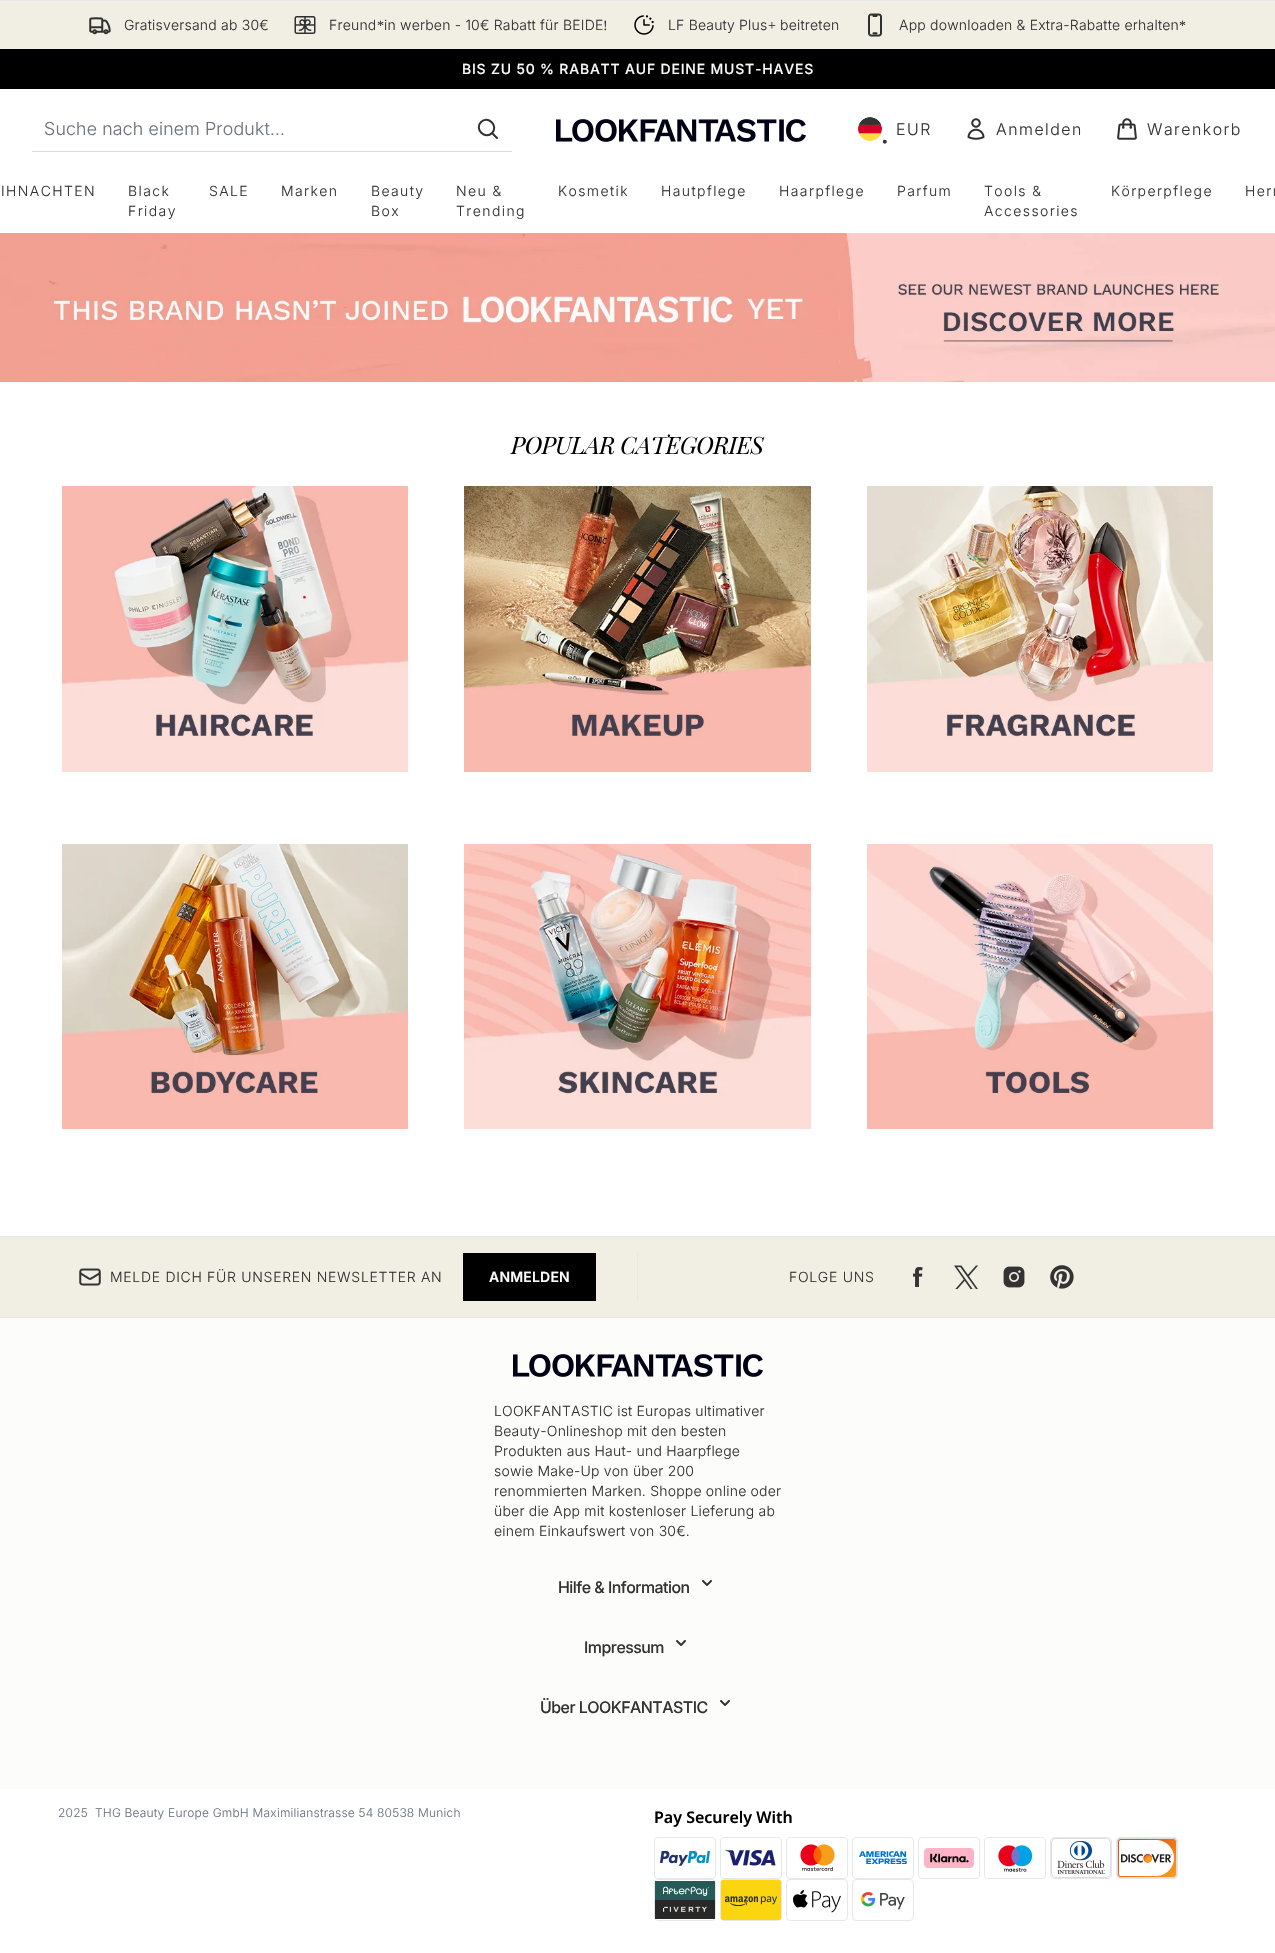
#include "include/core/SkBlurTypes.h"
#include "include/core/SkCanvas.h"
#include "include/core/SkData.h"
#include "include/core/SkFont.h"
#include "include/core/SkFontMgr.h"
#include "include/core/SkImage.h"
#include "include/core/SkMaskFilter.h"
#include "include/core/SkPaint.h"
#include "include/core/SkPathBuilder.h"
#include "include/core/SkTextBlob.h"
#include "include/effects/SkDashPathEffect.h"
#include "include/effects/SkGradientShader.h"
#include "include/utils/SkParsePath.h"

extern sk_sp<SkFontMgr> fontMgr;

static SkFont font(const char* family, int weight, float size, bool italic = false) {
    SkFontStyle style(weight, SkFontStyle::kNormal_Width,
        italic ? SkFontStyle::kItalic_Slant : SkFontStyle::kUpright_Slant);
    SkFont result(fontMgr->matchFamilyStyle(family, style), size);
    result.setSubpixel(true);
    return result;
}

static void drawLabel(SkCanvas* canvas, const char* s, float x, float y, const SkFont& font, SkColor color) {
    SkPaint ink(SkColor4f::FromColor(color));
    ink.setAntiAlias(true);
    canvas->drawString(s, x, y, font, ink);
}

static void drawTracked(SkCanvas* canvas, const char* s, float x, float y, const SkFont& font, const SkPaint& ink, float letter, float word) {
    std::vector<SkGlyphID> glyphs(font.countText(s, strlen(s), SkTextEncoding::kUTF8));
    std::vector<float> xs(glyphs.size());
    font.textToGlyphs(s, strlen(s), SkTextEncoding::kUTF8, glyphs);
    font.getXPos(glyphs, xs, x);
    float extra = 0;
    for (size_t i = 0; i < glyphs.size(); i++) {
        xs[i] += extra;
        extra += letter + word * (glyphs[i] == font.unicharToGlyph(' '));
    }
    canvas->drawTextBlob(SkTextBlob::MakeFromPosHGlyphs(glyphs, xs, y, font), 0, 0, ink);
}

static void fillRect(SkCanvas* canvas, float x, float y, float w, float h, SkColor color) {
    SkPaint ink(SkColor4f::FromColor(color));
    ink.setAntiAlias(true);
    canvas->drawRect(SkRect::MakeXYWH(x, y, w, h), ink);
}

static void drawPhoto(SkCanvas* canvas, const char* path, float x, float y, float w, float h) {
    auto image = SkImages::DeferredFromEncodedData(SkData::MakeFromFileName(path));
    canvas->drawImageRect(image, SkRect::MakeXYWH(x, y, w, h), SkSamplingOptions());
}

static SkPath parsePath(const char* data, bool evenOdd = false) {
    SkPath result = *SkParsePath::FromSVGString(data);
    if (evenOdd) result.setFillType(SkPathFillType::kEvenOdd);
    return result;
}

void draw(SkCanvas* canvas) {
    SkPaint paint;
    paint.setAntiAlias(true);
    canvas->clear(0xFFFFFFFF);
    fillRect(canvas, 0, 1, 1275, 48, 0xFFF1EEE4);
    fillRect(canvas, 0, 0, 1275, 1, 0xFFE5E7EB);
    drawPhoto(canvas, "assets/img1.png", 89, 17, 22, 18);
    SkFont font1 = font("Inter", 300, 14);
    paint.setColor(0xFF333333);
    drawTracked(canvas, "Gratisversand ab 30€", 124, 30, font1, paint, 0.2f, 0);
    drawPhoto(canvas, "assets/img2.png", 294, 16, 22, 18);
    drawTracked(canvas, "Freund", 329, 30, font1, paint, 0.2f, 0);
    SkFont font2 = font("Liberation Serif", 400, 14);
    drawTracked(canvas, "*", 377, 30, font2, paint, 0.2f, 0);
    drawTracked(canvas, "in werben - 10€ Rabatt für BEIDE", 384, 30, font1, paint, 0.2f, 0);
    drawTracked(canvas, "!", 603, 30, font2, paint, 0.2f, 0);
    drawPhoto(canvas, "assets/img3.png", 634, 15, 20, 20);
    drawTracked(canvas, "LF Beauty Plus", 668, 30, font1, paint, 0.2f, 0);
    drawTracked(canvas, "+", 768, 30, font2, paint, 0.2f, 0);
    drawTracked(canvas, "beitreten", 780, 30, font1, paint, 0.2f, 0);
    drawPhoto(canvas, "assets/img4.png", 868, 13, 14, 24);
    drawTracked(canvas, "App downloaden & Extra-Rabatte erhalten", 899, 30, font1, paint, 0.2f, 0);
    drawTracked(canvas, "*", 1179, 30, font2, paint, 0.2f, 0);
    fillRect(canvas, 0, 49, 1275, 40, 0xFF000000);
    SkFont font3 = font("Inter", 500, 14);
    paint.setColor(0xFFFBFBF9);
    drawTracked(canvas, "BIS ZU 50 % RABATT AUF DEINE MUST-HAVES", 462, 74, font3, paint, 0.8f, 0);
    fillRect(canvas, 32, 151, 480, 1, 0xFFDBDBDB);
    SkFont font4 = font("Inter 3", 300, 18);
    paint.setColor(0xFF6B7280);
    drawTracked(canvas, "Suche nach einem Produkt...", 44, 135, font4, paint, 0.2f, 0);
    paint.setStroke(true);
    paint.setStrokeWidth(2);
    paint.setStrokeCap(SkPaint::kRound_Cap);
    paint.setStrokeJoin(SkPaint::kRound_Join);
    paint.setColor(0xFF303030);
    canvas->drawPath(parsePath("M497 138L492 133M492 133C499 126 488 115 481 122C474 129 485 140 492 133Z"), paint);
    drawPhoto(canvas, "assets/img5.png", 556, 119, 250, 23);
    drawPhoto(canvas, "assets/img6.png", 858, 117, 24, 24);
    SkFont font5 = font("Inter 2", 300, 16);
    paint.setStroke(false);
    paint.setColor(0xFF333333);
    drawTracked(canvas, "EUR", 896, 135, font5, paint, 1.5f, 0);
    SkFont font6 = font("Liberation Serif", 400, 16);
    drawTracked(canvas, "•", 882, 147, font6, paint, 0.2f, 0);
    drawPhoto(canvas, "assets/img7.png", 967, 118, 18, 22);
    drawTracked(canvas, "Anmelden", 996, 135, font5, paint, 1.5f, 0);
    drawPhoto(canvas, "assets/img8.png", 1117, 118, 20, 22);
    drawTracked(canvas, "Warenkorb", 1147, 135, font5, paint, 1.5f, 0);
    drawTracked(canvas, "IHNACHTEN", 1, 196, font1, paint, 1.4f, 0);
    drawTracked(canvas, "Black", 128, 196, font1, paint, 1.4f, 0);
    drawTracked(canvas, "Friday", 128, 216, font1, paint, 1.4f, 0);
    drawTracked(canvas, "SALE", 209, 196, font1, paint, 1.4f, 0);
    drawTracked(canvas, "Marken", 281, 196, font1, paint, 1.4f, 0);
    drawTracked(canvas, "Beauty", 371, 196, font1, paint, 1.4f, 0);
    drawTracked(canvas, "Box", 371, 216, font1, paint, 1.4f, 0);
    drawTracked(canvas, "Neu &", 456, 196, font1, paint, 1.4f, 0);
    drawTracked(canvas, "Trending", 456, 216, font1, paint, 1.4f, 0);
    drawTracked(canvas, "Kosmetik", 558, 196, font1, paint, 1.4f, 0);
    drawTracked(canvas, "Hautpflege", 661, 196, font1, paint, 1.4f, 0);
    drawTracked(canvas, "Haarpflege", 779, 196, font1, paint, 1.4f, 0);
    drawTracked(canvas, "Parfum", 897, 196, font1, paint, 1.4f, 0);
    drawTracked(canvas, "Tools &", 984, 196, font1, paint, 1.4f, 0);
    drawTracked(canvas, "Accessories", 984, 216, font1, paint, 1.4f, 0);
    drawTracked(canvas, "Körperpflege", 1111, 196, font1, paint, 1.4f, 0);
    drawTracked(canvas, "Herr", 1245, 196, font1, paint, 1.4f, 0);
    drawPhoto(canvas, "assets/img9.png", 0, 233, 1275, 149);
    SkFont font7 = font("Playfair Display", 400, 24, true);
    paint.setColor(0xFF000000);
    drawTracked(canvas, "POPULAR CATEGORIES", 511, 454, font7, paint, -0.5f, 0);
    drawPhoto(canvas, "assets/img10.png", 62, 486, 346, 286);
    drawPhoto(canvas, "assets/img11.png", 464, 486, 347, 286);
    drawPhoto(canvas, "assets/img12.png", 867, 486, 346, 286);
    drawPhoto(canvas, "assets/img13.png", 62, 844, 346, 285);
    drawPhoto(canvas, "assets/img14.png", 464, 844, 347, 285);
    drawPhoto(canvas, "assets/img15.png", 867, 844, 346, 285);
    fillRect(canvas, 0, 1237, 1275, 80, 0xFFF1EEE4);
    fillRect(canvas, 0, 1236, 1275, 1, 0xFFE5E7EB);
    fillRect(canvas, 0, 1317, 1275, 1, 0xFFE5E7EB);
    fillRect(canvas, 637, 1253, 1, 48, 0xFFE5E7EB);
    drawPhoto(canvas, "assets/img16.png", 79, 1268, 22, 18);
    paint.setColor(0xFF333333);
    drawTracked(canvas, "MELDE DICH FÜR UNSEREN NEWSLETTER AN", 110, 1282, font1, paint, 0.7f, 0);
    fillRect(canvas, 463, 1253, 133, 48, 0xFF000000);
    SkFont font8 = font("Inter", 600, 14);
    paint.setColor(0xFFFFFFFF);
    drawTracked(canvas, "ANMELDEN", 489, 1282, font8, paint, 0.2f, 0);
    paint.setColor(0xFF333333);
    drawTracked(canvas, "FOLGE UNS", 789, 1282, font1, paint, 0.7f, 0);
    drawPhoto(canvas, "assets/img17.png", 913, 1267, 10, 20);
    drawPhoto(canvas, "assets/img18.png", 954, 1265, 24, 24);
    drawPhoto(canvas, "assets/img19.png", 1003, 1266, 22, 22);
    drawPhoto(canvas, "assets/img20.png", 1050, 1265, 24, 24);
    fillRect(canvas, 0, 1318, 1275, 471, 0xFFFCFCFA);
    drawPhoto(canvas, "assets/img21.png", 513, 1354, 250, 23);
    drawTracked(canvas, "LOOKFANTASTIC ist Europas ultimativer", 494, 1416, font1, paint, 0.2f, 0);
    drawTracked(canvas, "Beauty-Onlineshop mit den besten", 494, 1436, font1, paint, 0.2f, 0);
    drawTracked(canvas, "Produkten aus Haut- und Haarpflege", 494, 1456, font1, paint, 0.2f, 0);
    drawTracked(canvas, "sowie Make-Up von über 200", 494, 1476, font1, paint, 0.2f, 0);
    drawTracked(canvas, "renommierten Marken. Shoppe online oder", 494, 1496, font1, paint, 0.2f, 0);
    drawTracked(canvas, "über die App mit kostenloser Lieferung ab", 494, 1516, font1, paint, 0.2f, 0);
    drawTracked(canvas, "einem Einkaufswert von 30€.", 494, 1536, font1, paint, 0.2f, 0);
    SkFont font9 = font("Inter 2", 500, 16);
    drawTracked(canvas, "Hilfe & Information", 558, 1593, font9, paint, -0.5f, 0);
    drawPhoto(canvas, "assets/img22.png", 702, 1580, 10, 6);
    drawTracked(canvas, "Impressum", 584, 1653, font9, paint, -0.5f, 0);
    drawPhoto(canvas, "assets/img22.png", 676, 1640, 10, 6);
    drawTracked(canvas, "Über LOOKFANTASTIC", 540, 1713, font9, paint, -0.5f, 0);
    drawPhoto(canvas, "assets/img22.png", 720, 1700, 10, 6);
    SkFont font10 = font("Inter", 300, 12);
    paint.setColor(0xFF6B7280);
    drawTracked(canvas, "2025", 58, 1817, font10, paint, 0.2f, 0);
    drawTracked(canvas, "THG Beauty Europe GmbH Maximilianstrasse 54 80538 Munich", 95, 1817, font10, paint, 0.2f, 0);
    SkFont font11 = font("Noto Sans", 600, 16);
    drawLabel(canvas, "Pay Securely With", 654, 1823, font11, 0xFF000000);
    paint.setStroke(true);
    paint.setStrokeWidth(1);
    paint.setStrokeCap(SkPaint::kButt_Cap);
    paint.setStrokeJoin(SkPaint::kMiter_Join);
    paint.setColor(0xFFE5E7EB);
    canvas->drawRoundRect(SkRect::MakeXYWH(654.5f, 1837.5f, 61, 41), 3.5f, 3.5f, paint);
    drawPhoto(canvas, "assets/img23.png", 660, 1851, 50, 15);
    canvas->drawRoundRect(SkRect::MakeXYWH(720.5f, 1837.5f, 61, 41), 3.5f, 3.5f, paint);
    drawPhoto(canvas, "assets/img24.png", 725, 1850, 51, 16);
    canvas->drawRoundRect(SkRect::MakeXYWH(786.5f, 1837.5f, 61, 41), 3.5f, 3.5f, paint);
    drawPhoto(canvas, "assets/img25.png", 800, 1844, 35, 27);
    canvas->drawRoundRect(SkRect::MakeXYWH(852.5f, 1837.5f, 61, 41), 3.5f, 3.5f, paint);
    drawPhoto(canvas, "assets/img26.png", 859, 1851, 48, 13);
    canvas->drawRoundRect(SkRect::MakeXYWH(918.5f, 1837.5f, 61, 41), 3.5f, 3.5f, paint);
    drawPhoto(canvas, "assets/img27.png", 924, 1848, 50, 20);
    canvas->drawRoundRect(SkRect::MakeXYWH(984.5f, 1837.5f, 61, 41), 3.5f, 3.5f, paint);
    drawPhoto(canvas, "assets/img28.png", 998, 1845, 35, 27);
    canvas->drawRoundRect(SkRect::MakeXYWH(1050.5f, 1837.5f, 61, 41), 3.5f, 3.5f, paint);
    drawPhoto(canvas, "assets/img29.png", 1051, 1838, 60, 40);
    canvas->drawRoundRect(SkRect::MakeXYWH(1116.5f, 1837.5f, 61, 41), 3.5f, 3.5f, paint);
    drawPhoto(canvas, "assets/img30.png", 1117, 1838, 60, 40);
    canvas->drawRoundRect(SkRect::MakeXYWH(654.5f, 1879.5f, 61, 41), 3.5f, 3.5f, paint);
    drawPhoto(canvas, "assets/img31.png", 655, 1881, 60, 38);
    canvas->drawRoundRect(SkRect::MakeXYWH(720.5f, 1879.5f, 61, 41), 3.5f, 3.5f, paint);
    drawPhoto(canvas, "assets/img32.png", 721, 1880, 60, 40);
    canvas->drawRoundRect(SkRect::MakeXYWH(786.5f, 1879.5f, 61, 41), 3.5f, 3.5f, paint);
    drawPhoto(canvas, "assets/img33.png", 793, 1890, 48, 23);
    canvas->drawRoundRect(SkRect::MakeXYWH(852.5f, 1879.5f, 61, 41), 3.5f, 3.5f, paint);
    drawPhoto(canvas, "assets/img34.png", 861, 1892, 44, 18);
}
